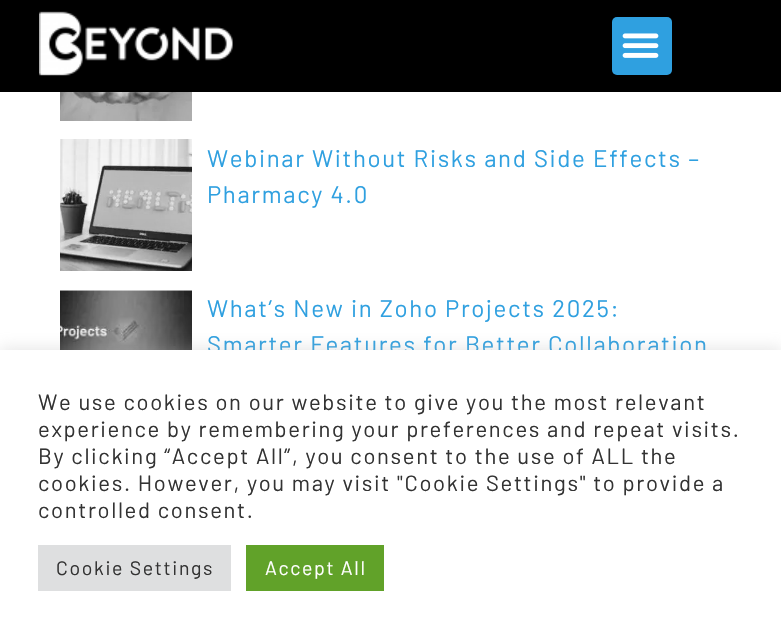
#include "include/core/SkBlurTypes.h"
#include "include/core/SkCanvas.h"
#include "include/core/SkData.h"
#include "include/core/SkFont.h"
#include "include/core/SkFontMgr.h"
#include "include/core/SkImage.h"
#include "include/core/SkMaskFilter.h"
#include "include/core/SkPaint.h"
#include "include/core/SkPathBuilder.h"
#include "include/core/SkTextBlob.h"
#include "include/effects/SkDashPathEffect.h"
#include "include/effects/SkGradientShader.h"
#include "include/utils/SkParsePath.h"

extern sk_sp<SkFontMgr> fontMgr;

static SkFont font(const char* family, int weight, float size, bool italic = false) {
    SkFontStyle style(weight, SkFontStyle::kNormal_Width,
        italic ? SkFontStyle::kItalic_Slant : SkFontStyle::kUpright_Slant);
    SkFont result(fontMgr->matchFamilyStyle(family, style), size);
    result.setSubpixel(true);
    return result;
}

static void drawTracked(SkCanvas* canvas, const char* s, float x, float y, const SkFont& font, const SkPaint& ink, float letter, float word) {
    std::vector<SkGlyphID> glyphs(font.countText(s, strlen(s), SkTextEncoding::kUTF8));
    std::vector<float> xs(glyphs.size());
    font.textToGlyphs(s, strlen(s), SkTextEncoding::kUTF8, glyphs);
    font.getXPos(glyphs, xs, x);
    float extra = 0;
    for (size_t i = 0; i < glyphs.size(); i++) {
        xs[i] += extra;
        extra += letter + word * (glyphs[i] == font.unicharToGlyph(' '));
    }
    canvas->drawTextBlob(SkTextBlob::MakeFromPosHGlyphs(glyphs, xs, y, font), 0, 0, ink);
}

static void fillRect(SkCanvas* canvas, float x, float y, float w, float h, SkColor color) {
    SkPaint ink(SkColor4f::FromColor(color));
    ink.setAntiAlias(true);
    canvas->drawRect(SkRect::MakeXYWH(x, y, w, h), ink);
}

static void fillRRect(SkCanvas* canvas, float x, float y, float w, float h, float radius, SkColor color) {
    SkPaint ink(SkColor4f::FromColor(color));
    ink.setAntiAlias(true);
    canvas->drawRoundRect(SkRect::MakeXYWH(x, y, w, h), radius, radius, ink);
}

static void drawPhoto(SkCanvas* canvas, const char* path, float x, float y, float w, float h) {
    auto image = SkImages::DeferredFromEncodedData(SkData::MakeFromFileName(path));
    canvas->drawImageRect(image, SkRect::MakeXYWH(x, y, w, h), SkSamplingOptions());
}

void draw(SkCanvas* canvas) {
    SkPaint paint;
    paint.setAntiAlias(true);
    canvas->clear(0xFFFFFFFF);
    fillRect(canvas, 0, 0, 781, 92, 0xFF000000);
    drawPhoto(canvas, "assets/img1.png", 39, 11, 194, 65);
    fillRRect(canvas, 612, 17, 60, 58, 5, 0xFF2FA0E0);
    drawPhoto(canvas, "assets/img2.png", 622, 33, 37, 25);
    drawPhoto(canvas, "assets/img3.png", 60, 92, 132, 29);
    drawPhoto(canvas, "assets/img4.png", 60, 139, 132, 132);
    SkFont font1 = font("Barlow", 400, 24);
    paint.setColor(0xFF2FA0E0);
    drawTracked(canvas, "Webinar Without Risks and Side Effects –", 207, 167, font1, paint, 1.65f, 0);
    drawTracked(canvas, "Pharmacy 4.0", 207, 203, font1, paint, 1.65f, 0);
    drawPhoto(canvas, "assets/img5.png", 60, 290, 132, 60);
    drawTracked(canvas, "What’s New in Zoho Projects 2025:", 207, 317, font1, paint, 1.65f, 0);
    drawTracked(canvas, "Smarter Features for Better Collaboration", 207, 353, font1, paint, 1.65f, 0);
    paint.setColor(0x4DACABAB);
    paint.setMaskFilter(SkMaskFilter::MakeBlur(kNormal_SkBlurStyle, 7.5f));
    canvas->drawRect(SkRect::MakeXYWH(0, 348, 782, 287), paint);
    paint.setMaskFilter(nullptr);
    fillRect(canvas, 0, 350, 781, 285, 0xFFFFFFFF);
    SkFont font2 = font("Barlow", 400, 22);
    paint.setColor(0xFF333333);
    drawTracked(canvas, "We use cookies on our website to give you the most relevant", 38, 410, font2, paint, 1.65f, 0);
    drawTracked(canvas, "experience by remembering your preferences and repeat visits.", 38, 437, font2, paint, 1.65f, 0);
    drawTracked(canvas, "By clicking “Accept All”, you consent to the use of ALL the", 38, 464, font2, paint, 1.65f, 0);
    drawTracked(canvas, "cookies. However, you may visit \"Cookie Settings\" to provide a", 38, 491, font2, paint, 1.65f, 0);
    drawTracked(canvas, "controlled consent.", 38, 518, font2, paint, 1.65f, 0);
    fillRect(canvas, 38, 545, 193, 46, 0xFFDEDFE0);
    SkFont font3 = font("Barlow", 400, 19.5f);
    drawTracked(canvas, "Cookie Settings", 56, 575, font3, paint, 1.65f, 0);
    fillRect(canvas, 246, 545, 138, 46, 0xFF61A229);
    paint.setColor(0xFFFFFFFF);
    drawTracked(canvas, "Accept All", 265, 575, font3, paint, 1.65f, 0);
}
